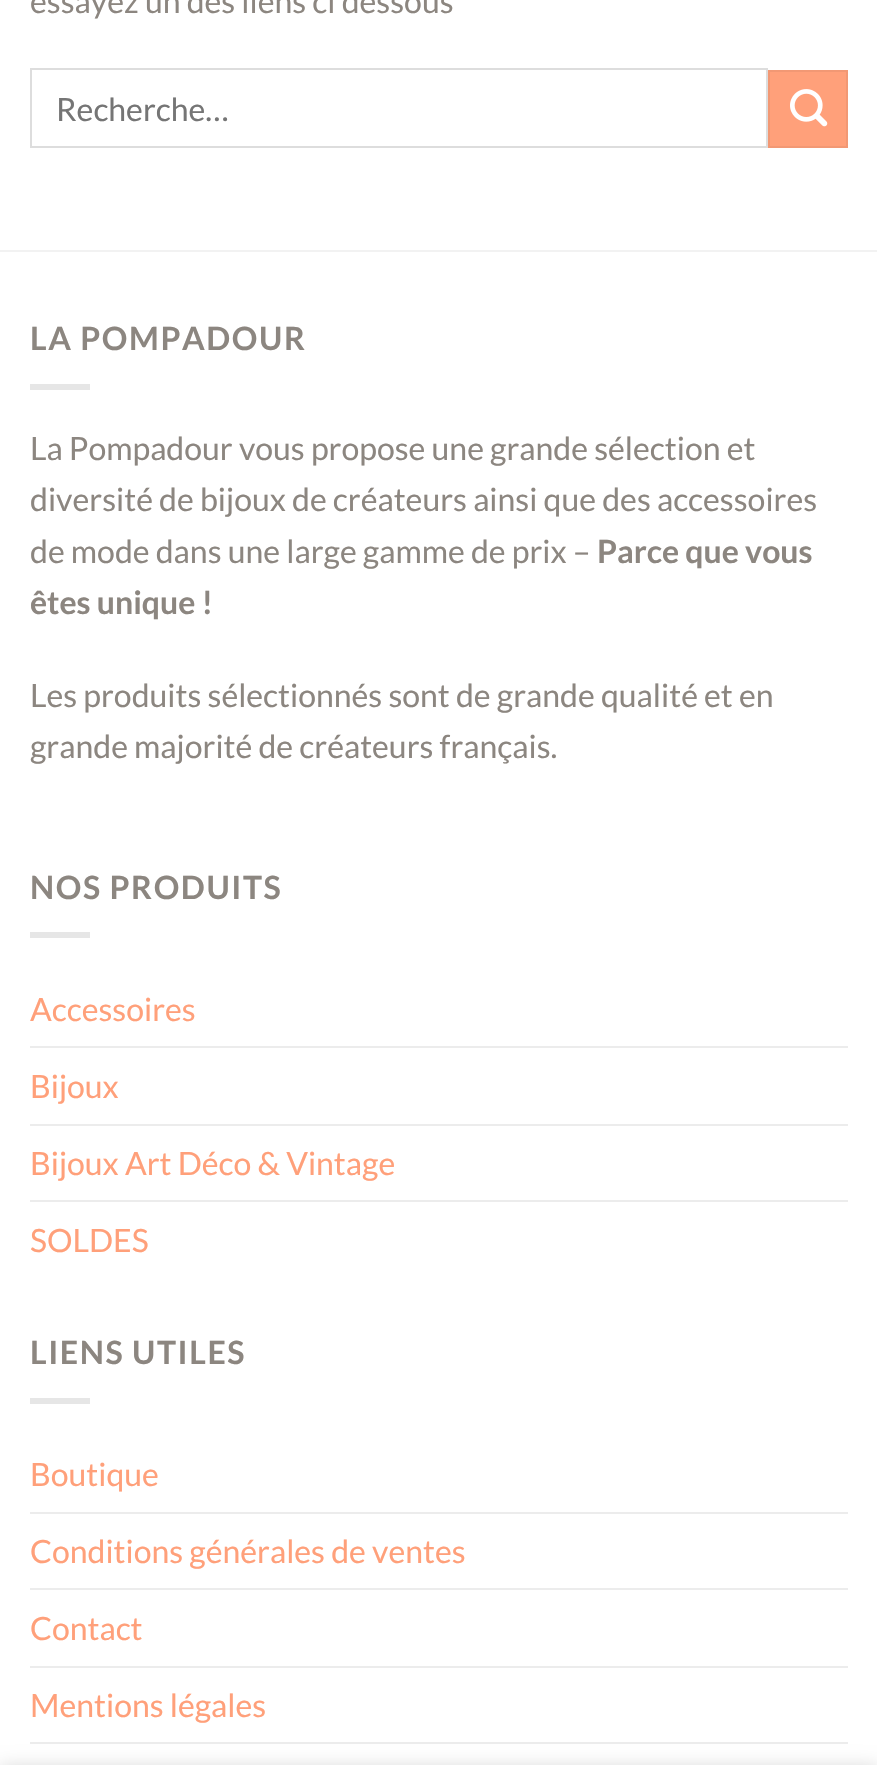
#include "include/core/SkBlurTypes.h"
#include "include/core/SkCanvas.h"
#include "include/core/SkData.h"
#include "include/core/SkFont.h"
#include "include/core/SkFontMgr.h"
#include "include/core/SkImage.h"
#include "include/core/SkMaskFilter.h"
#include "include/core/SkPaint.h"
#include "include/core/SkPathBuilder.h"
#include "include/core/SkTextBlob.h"
#include "include/effects/SkDashPathEffect.h"
#include "include/effects/SkGradientShader.h"
#include "include/utils/SkParsePath.h"

extern sk_sp<SkFontMgr> fontMgr;

static SkFont font(const char* family, int weight, float size, bool italic = false) {
    SkFontStyle style(weight, SkFontStyle::kNormal_Width,
        italic ? SkFontStyle::kItalic_Slant : SkFontStyle::kUpright_Slant);
    SkFont result(fontMgr->matchFamilyStyle(family, style), size);
    result.setSubpixel(true);
    return result;
}

static void drawLabel(SkCanvas* canvas, const char* s, float x, float y, const SkFont& font, SkColor color) {
    SkPaint ink(SkColor4f::FromColor(color));
    ink.setAntiAlias(true);
    canvas->drawString(s, x, y, font, ink);
}

static void drawTracked(SkCanvas* canvas, const char* s, float x, float y, const SkFont& font, const SkPaint& ink, float letter, float word) {
    std::vector<SkGlyphID> glyphs(font.countText(s, strlen(s), SkTextEncoding::kUTF8));
    std::vector<float> xs(glyphs.size());
    font.textToGlyphs(s, strlen(s), SkTextEncoding::kUTF8, glyphs);
    font.getXPos(glyphs, xs, x);
    float extra = 0;
    for (size_t i = 0; i < glyphs.size(); i++) {
        xs[i] += extra;
        extra += letter + word * (glyphs[i] == font.unicharToGlyph(' '));
    }
    canvas->drawTextBlob(SkTextBlob::MakeFromPosHGlyphs(glyphs, xs, y, font), 0, 0, ink);
}

static void fillRect(SkCanvas* canvas, float x, float y, float w, float h, SkColor color) {
    SkPaint ink(SkColor4f::FromColor(color));
    ink.setAntiAlias(true);
    canvas->drawRect(SkRect::MakeXYWH(x, y, w, h), ink);
}

static void drawPhoto(SkCanvas* canvas, const char* path, float x, float y, float w, float h) {
    auto image = SkImages::DeferredFromEncodedData(SkData::MakeFromFileName(path));
    canvas->drawImageRect(image, SkRect::MakeXYWH(x, y, w, h), SkSamplingOptions());
}

void draw(SkCanvas* canvas) {
    SkPaint paint;
    paint.setAntiAlias(true);
    canvas->clear(0xFFFFFFFF);
    SkFont font1 = font("Lato", 400, 32);
    drawLabel(canvas, "essayez un des liens ci dessous", 30, 13, font1, 0xFF8C8680);
    paint.setStroke(true);
    paint.setStrokeWidth(2);
    paint.setColor(0xFFDDDDDD);
    canvas->drawRect(SkRect::MakeXYWH(31, 69, 736, 78), paint);
    drawLabel(canvas, "Recherche…", 56, 121, font1, 0xFF757575);
    paint.setStroke(false);
    paint.setColor(0xFFFFA07A);
    canvas->drawRect(SkRect::MakeXYWH(769, 71, 78, 76), paint);
    paint.setStroke(true);
    paint.setColor(0xFFF29874);
    canvas->drawRect(SkRect::MakeXYWH(769, 71, 78, 76), paint);
    drawPhoto(canvas, "assets/img1.png", 790, 89, 38, 38);
    fillRect(canvas, 0, 250, 877, 2, 0xFFF2F2F2);
    SkFont font2 = font("Lato", 700, 32);
    paint.setStroke(false);
    paint.setColor(0xFF8C8680);
    drawTracked(canvas, "LA POMPADOUR", 30, 350, font2, paint, 1.6f, 0);
    fillRect(canvas, 30, 384, 60, 6, 0xFFE6E6E6);
    drawLabel(canvas, "La Pompadour vous propose une grande sélection et", 30, 460, font1, 0xFF8C8680);
    drawLabel(canvas, "diversité de bijoux de créateurs ainsi que des accessoires", 30, 511, font1, 0xFF8C8680);
    drawLabel(canvas, "de mode dans une large gamme de prix –", 30, 563, font1, 0xFF8C8680);
    drawLabel(canvas, "Parce que vous", 597, 563, font2, 0xFF8C8680);
    drawLabel(canvas, "êtes unique !", 30, 614, font2, 0xFF8C8680);
    drawLabel(canvas, "Les produits sélectionnés sont de grande qualité et en", 30, 707, font1, 0xFF8C8680);
    drawLabel(canvas, "grande majorité de créateurs français.", 30, 758, font1, 0xFF8C8680);
    drawTracked(canvas, "NOS PRODUITS", 30, 899, font2, paint, 1.6f, 0);
    fillRect(canvas, 30, 932, 60, 6, 0xFFE6E6E6);
    drawLabel(canvas, "Accessoires", 30, 1021, font1, 0xFFFFA07A);
    fillRect(canvas, 30, 1046, 818, 2, 0xFFECECEC);
    drawLabel(canvas, "Bijoux", 30, 1098, font1, 0xFFFFA07A);
    fillRect(canvas, 30, 1124, 818, 2, 0xFFECECEC);
    drawLabel(canvas, "Bijoux Art Déco & Vintage", 30, 1175, font1, 0xFFFFA07A);
    fillRect(canvas, 30, 1200, 818, 2, 0xFFECECEC);
    drawLabel(canvas, "SOLDES", 30, 1252, font1, 0xFFFFA07A);
    drawTracked(canvas, "LIENS UTILES", 30, 1364, font2, paint, 1.6f, 0);
    fillRect(canvas, 30, 1398, 60, 6, 0xFFE6E6E6);
    drawLabel(canvas, "Boutique", 30, 1486, font1, 0xFFFFA07A);
    fillRect(canvas, 30, 1512, 818, 2, 0xFFECECEC);
    drawLabel(canvas, "Conditions générales de ventes", 30, 1563, font1, 0xFFFFA07A);
    fillRect(canvas, 30, 1588, 818, 2, 0xFFECECEC);
    drawLabel(canvas, "Contact", 30, 1640, font1, 0xFFFFA07A);
    fillRect(canvas, 30, 1666, 818, 2, 0xFFECECEC);
    drawLabel(canvas, "Mentions légales", 30, 1717, font1, 0xFFFFA07A);
    fillRect(canvas, 30, 1742, 818, 2, 0xFFECECEC);
    paint.setColor(0x24000000);
    paint.setMaskFilter(SkMaskFilter::MakeBlur(kNormal_SkBlurStyle, 9));
    canvas->drawRect(SkRect::MakeXYWH(0, 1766, 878, 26), paint);
    paint.setMaskFilter(nullptr);
}
